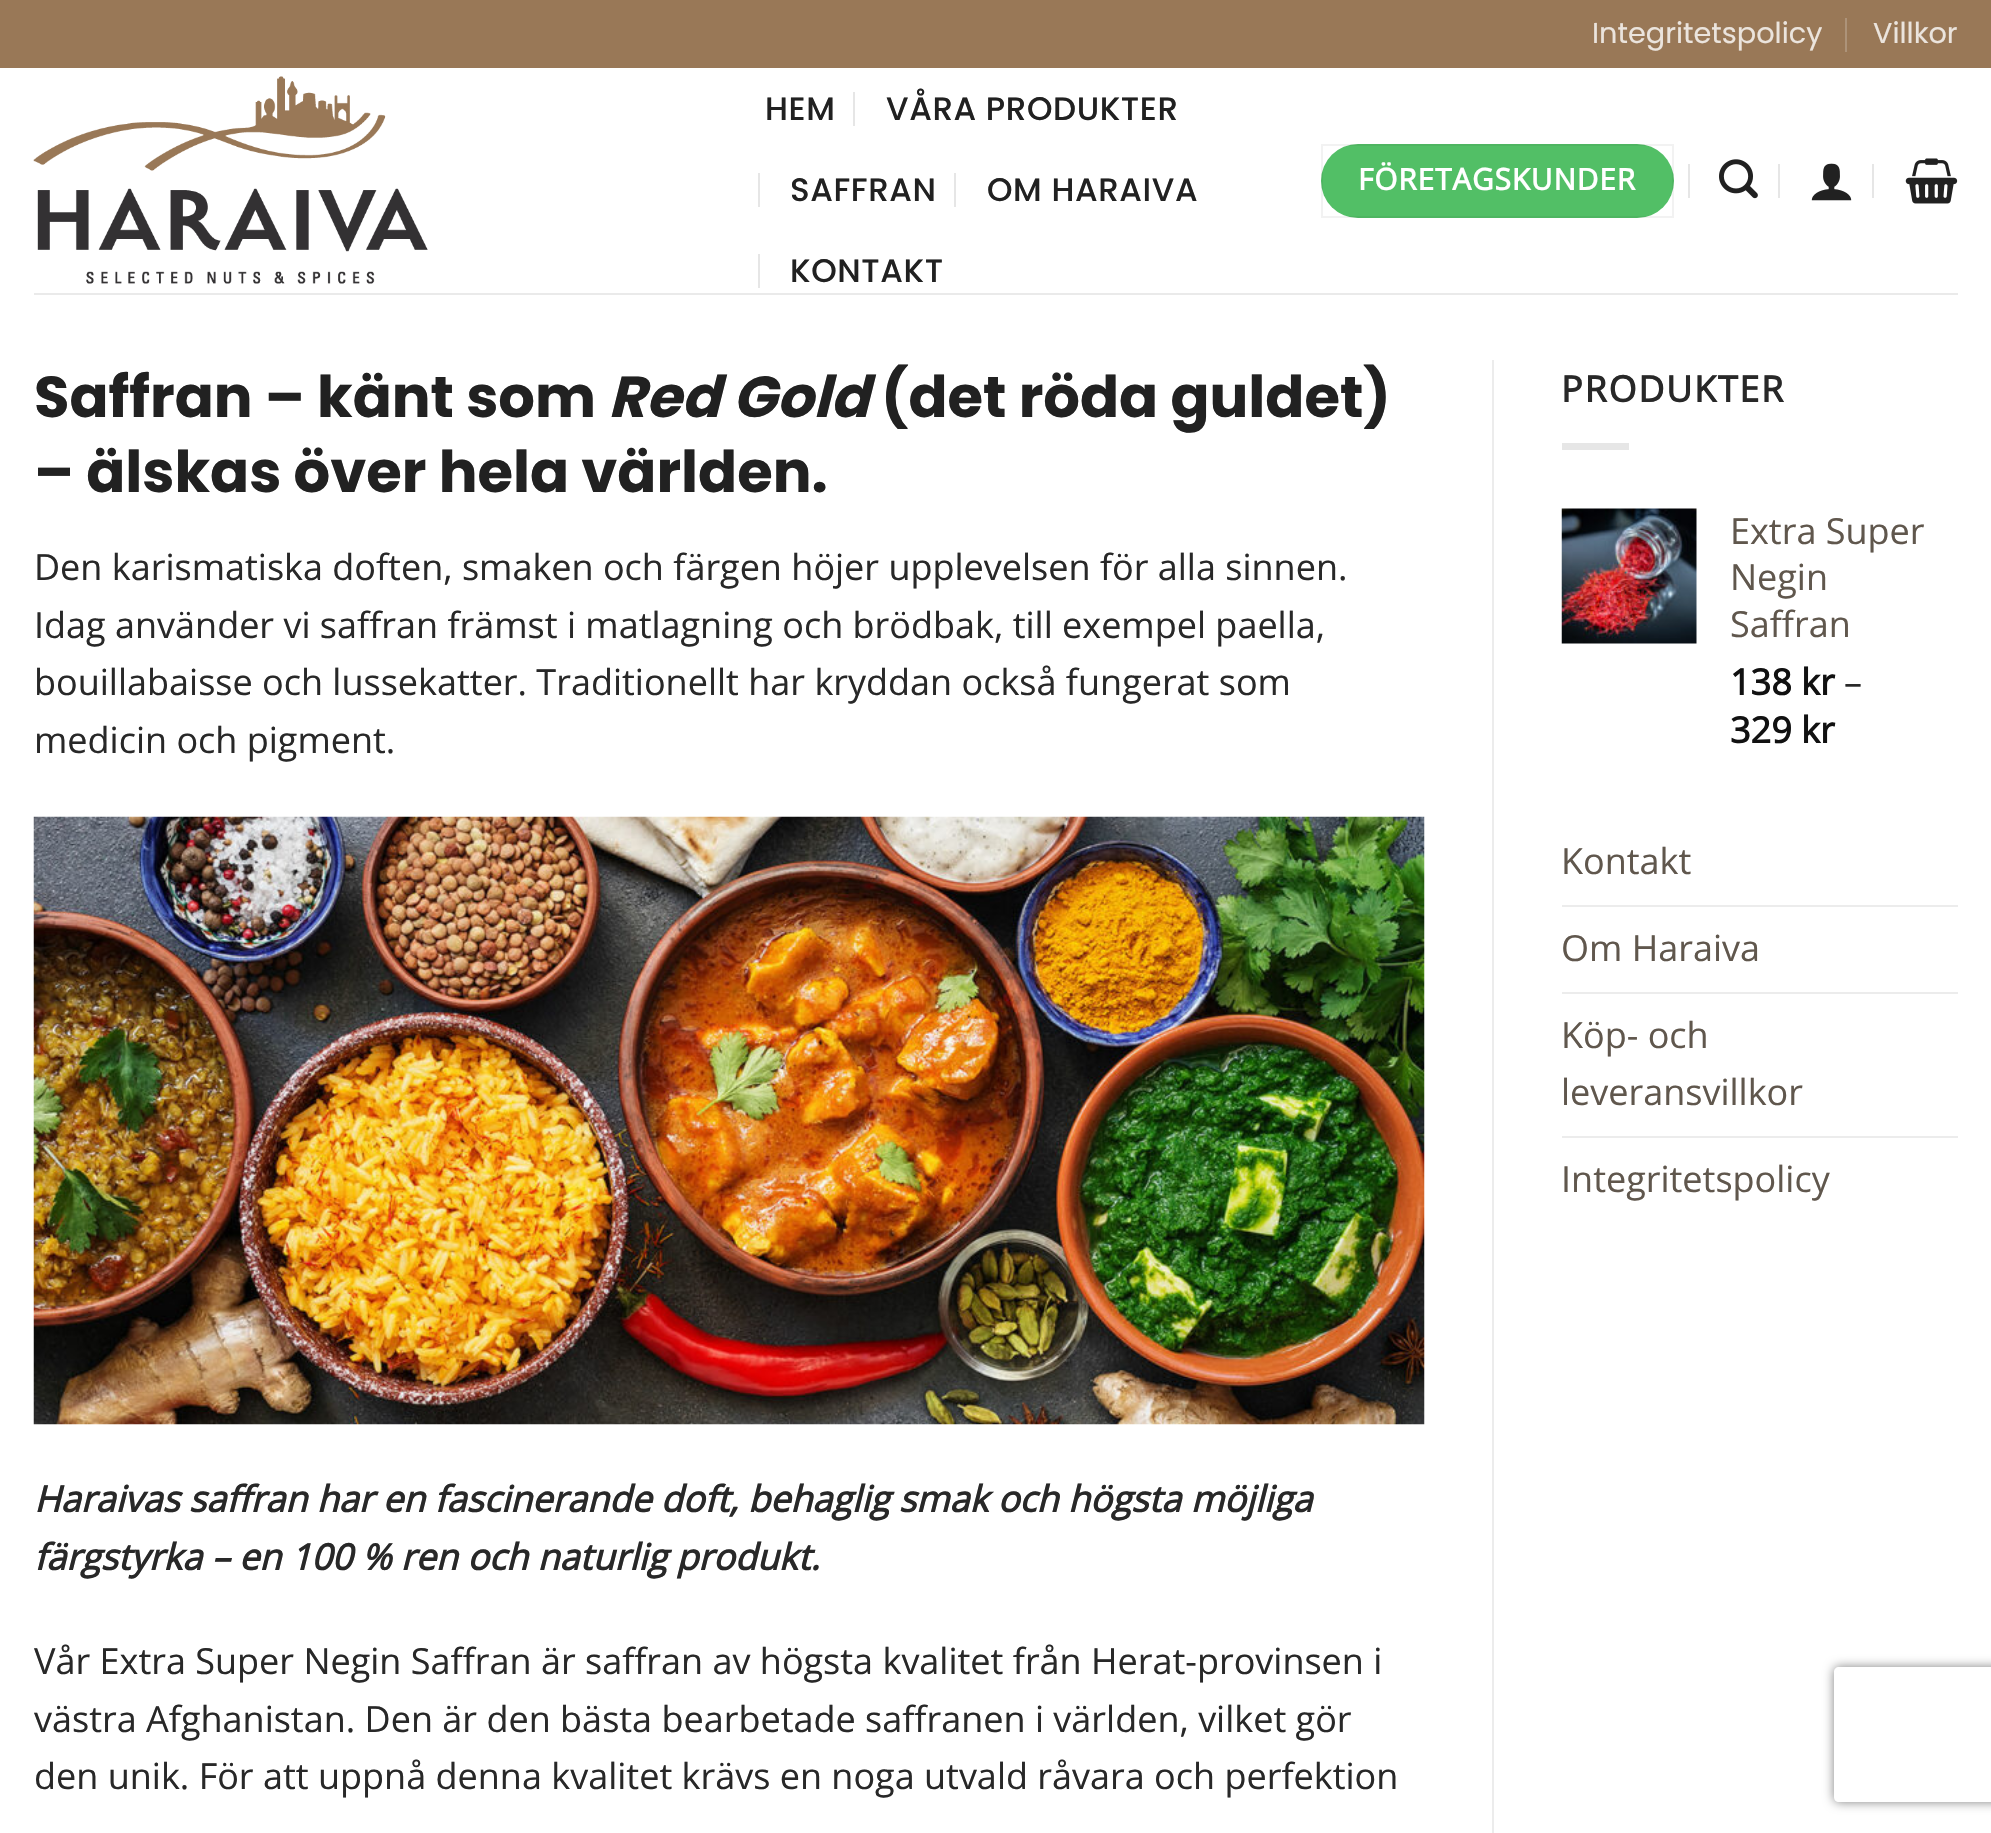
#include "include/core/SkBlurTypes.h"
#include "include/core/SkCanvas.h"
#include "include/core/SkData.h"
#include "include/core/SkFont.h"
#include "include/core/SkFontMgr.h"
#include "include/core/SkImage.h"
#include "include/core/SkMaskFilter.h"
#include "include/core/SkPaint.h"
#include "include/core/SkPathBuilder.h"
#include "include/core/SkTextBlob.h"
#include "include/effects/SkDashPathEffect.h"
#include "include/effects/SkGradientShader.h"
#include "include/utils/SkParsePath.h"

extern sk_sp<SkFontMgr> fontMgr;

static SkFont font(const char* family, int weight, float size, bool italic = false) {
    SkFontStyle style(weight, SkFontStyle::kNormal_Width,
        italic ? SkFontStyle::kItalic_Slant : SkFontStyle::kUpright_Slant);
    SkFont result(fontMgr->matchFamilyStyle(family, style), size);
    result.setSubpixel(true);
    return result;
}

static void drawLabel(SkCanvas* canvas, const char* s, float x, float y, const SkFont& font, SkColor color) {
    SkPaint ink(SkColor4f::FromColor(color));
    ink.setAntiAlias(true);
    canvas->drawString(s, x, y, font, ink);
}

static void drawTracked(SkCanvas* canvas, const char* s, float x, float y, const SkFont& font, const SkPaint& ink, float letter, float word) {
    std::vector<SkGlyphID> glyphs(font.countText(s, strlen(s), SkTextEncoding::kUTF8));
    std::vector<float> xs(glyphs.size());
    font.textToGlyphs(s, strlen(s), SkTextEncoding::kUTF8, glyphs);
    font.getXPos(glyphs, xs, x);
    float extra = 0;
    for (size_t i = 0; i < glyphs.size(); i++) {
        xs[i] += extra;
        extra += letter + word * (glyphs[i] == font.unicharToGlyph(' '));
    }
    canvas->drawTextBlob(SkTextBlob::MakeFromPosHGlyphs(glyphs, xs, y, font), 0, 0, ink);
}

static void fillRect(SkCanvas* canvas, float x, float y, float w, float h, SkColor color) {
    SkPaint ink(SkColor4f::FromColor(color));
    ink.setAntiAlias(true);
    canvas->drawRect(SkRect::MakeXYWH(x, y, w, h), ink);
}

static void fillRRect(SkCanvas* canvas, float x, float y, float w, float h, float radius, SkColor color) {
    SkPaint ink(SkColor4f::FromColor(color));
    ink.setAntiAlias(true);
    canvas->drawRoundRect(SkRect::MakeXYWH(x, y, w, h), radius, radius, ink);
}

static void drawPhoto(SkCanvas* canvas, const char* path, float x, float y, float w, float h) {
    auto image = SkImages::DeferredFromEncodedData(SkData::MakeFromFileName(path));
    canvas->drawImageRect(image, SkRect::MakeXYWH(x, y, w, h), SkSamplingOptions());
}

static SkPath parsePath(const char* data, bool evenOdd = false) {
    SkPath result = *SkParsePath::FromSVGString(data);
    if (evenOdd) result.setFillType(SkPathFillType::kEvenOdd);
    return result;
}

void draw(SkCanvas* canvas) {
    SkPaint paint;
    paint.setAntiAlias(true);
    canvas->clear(0xFFFFFFFF);
    fillRect(canvas, 0, 0, 1991, 68, 0xFF997857);
    SkFont font1 = font("Poppins", 400, 28.75f);
    drawLabel(canvas, "Integritetspolicy", 1592, 43, font1, 0xFFEBE4DD);
    fillRect(canvas, 1845, 18, 2, 34, 0xFFAD9379);
    drawLabel(canvas, "Villkor", 1873, 43, font1, 0xFFEBE4DD);
    drawPhoto(canvas, "assets/img1.png", 33, 76, 395, 208);
    SkFont font2 = font("Poppins", 500, 32.5f);
    paint.setColor(0xFF212121);
    drawTracked(canvas, "HEM", 765, 120, font2, paint, 0.6f, 0);
    fillRect(canvas, 853, 92, 2, 34, 0xFFE6E6E6);
    drawTracked(canvas, "VÅRA PRODUKTER", 886, 120, font2, paint, 0.6f, 0);
    fillRect(canvas, 758, 173, 2, 34, 0xFFE6E6E6);
    drawTracked(canvas, "SAFFRAN", 790, 201, font2, paint, 0.6f, 0);
    fillRect(canvas, 954, 173, 2, 34, 0xFFE6E6E6);
    drawTracked(canvas, "OM HARAIVA", 987, 201, font2, paint, 0.6f, 0);
    fillRect(canvas, 758, 254, 2, 34, 0xFFE6E6E6);
    drawTracked(canvas, "KONTAKT", 790, 282, font2, paint, 0.6f, 0);
    fillRRect(canvas, 1321, 144, 353, 74, 37, 0xFF52BF66);
    paint.setStroke(true);
    paint.setStrokeWidth(2);
    paint.setColor(0x0D000000);
    canvas->drawRect(SkRect::MakeXYWH(1322, 145, 351, 72), paint);
    SkFont font3 = font("Open Sans", 700, 29.75f);
    paint.setStroke(false);
    paint.setColor(0xFFFFFFFF);
    drawTracked(canvas, "FÖRETAGSKUNDER", 1358, 190, font3, paint, 0.9f, 0);
    fillRect(canvas, 1688, 164, 2, 34, 0xFFE6E6E6);
    drawPhoto(canvas, "assets/img2.png", 1719, 159, 39, 40);
    fillRect(canvas, 1778, 164, 2, 34, 0xFFE6E6E6);
    drawPhoto(canvas, "assets/img3.png", 1811, 163, 41, 38);
    fillRect(canvas, 1872, 164, 2, 34, 0xFFE6E6E6);
    drawPhoto(canvas, "assets/img4.png", 1905, 158, 53, 46);
    fillRect(canvas, 34, 293, 1924, 2, 0xFFEAEAEA);
    fillRect(canvas, 1492, 360, 2, 1473, 0xFFECECEC);
    SkFont font4 = font("Poppins", 700, 57.6f);
    drawLabel(canvas, "Saffran – känt som", 34, 417, font4, 0xFF212121);
    SkFont font5 = font("Poppins", 700, 57.6f, true);
    drawLabel(canvas, "Red Gold", 608, 417, font5, 0xFF212121);
    drawLabel(canvas, "(det röda guldet)", 881, 417, font4, 0xFF212121);
    drawLabel(canvas, "– älskas över hela världen.", 34, 492, font4, 0xFF212121);
    SkFont font6 = font("Open Sans", 400, 36);
    drawLabel(canvas, "Den karismatiska doften, smaken och färgen höjer upplevelsen för alla sinnen.", 34, 580, font6, 0xFF282828);
    drawLabel(canvas, "Idag använder vi saffran främst i matlagning och brödbak, till exempel paella,", 34, 638, font6, 0xFF282828);
    drawLabel(canvas, "bouillabaisse och lussekatter. Traditionellt har kryddan också fungerat som", 34, 695, font6, 0xFF282828);
    drawLabel(canvas, "medicin och pigment.", 34, 753, font6, 0xFF282828);
    drawPhoto(canvas, "assets/img5.png", 33, 816, 1392, 609);
    SkFont font7 = font("Open Sans", 700, 36, true);
    drawLabel(canvas, "Haraivas saffran har en fascinerande doft, behaglig smak och högsta möjliga", 34, 1512, font7, 0xFF282828);
    drawLabel(canvas, "färgstyrka – en 100 % ren och naturlig produkt.", 34, 1570, font7, 0xFF282828);
    drawLabel(canvas, "Vår Extra Super Negin Saffran är saffran av högsta kvalitet från Herat-provinsen i", 34, 1674, font6, 0xFF282828);
    drawLabel(canvas, "västra Afghanistan. Den är den bästa bearbetade saffranen i världen, vilket gör", 34, 1732, font6, 0xFF282828);
    drawLabel(canvas, "den unik. För att uppnå denna kvalitet krävs en noga utvald råvara och perfektion", 34, 1789, font6, 0xFF282828);
    SkFont font8 = font("Open Sans", 700, 36);
    paint.setColor(0xFF282828);
    drawTracked(canvas, "PRODUKTER", 1561, 402, font8, paint, 1.75f, 0);
    fillRect(canvas, 1562, 443, 67, 7, 0xFFE6E6E6);
    drawPhoto(canvas, "assets/img6.png", 1561, 508, 136, 136);
    drawLabel(canvas, "Extra Super", 1730, 544, font6, 0xFF60574D);
    drawLabel(canvas, "Negin", 1730, 590, font6, 0xFF60574D);
    drawLabel(canvas, "Saffran", 1730, 637, font6, 0xFF60574D);
    drawLabel(canvas, "138 kr", 1730, 695, font8, 0xFF111111);
    drawLabel(canvas, "–", 1844, 695, font6, 0xFF282828);
    drawLabel(canvas, "329 kr", 1730, 743, font8, 0xFF111111);
    drawLabel(canvas, "Kontakt", 1561, 874, font6, 0xFF60574D);
    fillRect(canvas, 1562, 905, 396, 2, 0xFFECECEC);
    drawLabel(canvas, "Om Haraiva", 1561, 961, font6, 0xFF60574D);
    fillRect(canvas, 1562, 992, 396, 2, 0xFFECECEC);
    drawLabel(canvas, "Köp- och", 1561, 1048, font6, 0xFF60574D);
    drawLabel(canvas, "leveransvillkor", 1561, 1105, font6, 0xFF60574D);
    fillRect(canvas, 1562, 1136, 396, 2, 0xFFECECEC);
    drawLabel(canvas, "Integritetspolicy", 1561, 1192, font6, 0xFF60574D);
    canvas->save();
    canvas->clipPath(parsePath("M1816 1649H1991V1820H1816ZM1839 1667H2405C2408 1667 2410 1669 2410 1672V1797C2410 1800 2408 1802 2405 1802H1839C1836 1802 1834 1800 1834 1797V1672C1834 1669 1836 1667 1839 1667Z", true), true);
    paint.setColor(0xFF808080);
    paint.setMaskFilter(SkMaskFilter::MakeBlur(kNormal_SkBlurStyle, 5.5f));
    canvas->drawRoundRect(SkRect::MakeXYWH(1834, 1667, 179, 135), 5, 5, paint);
    paint.setMaskFilter(nullptr);
    canvas->restore();
}
